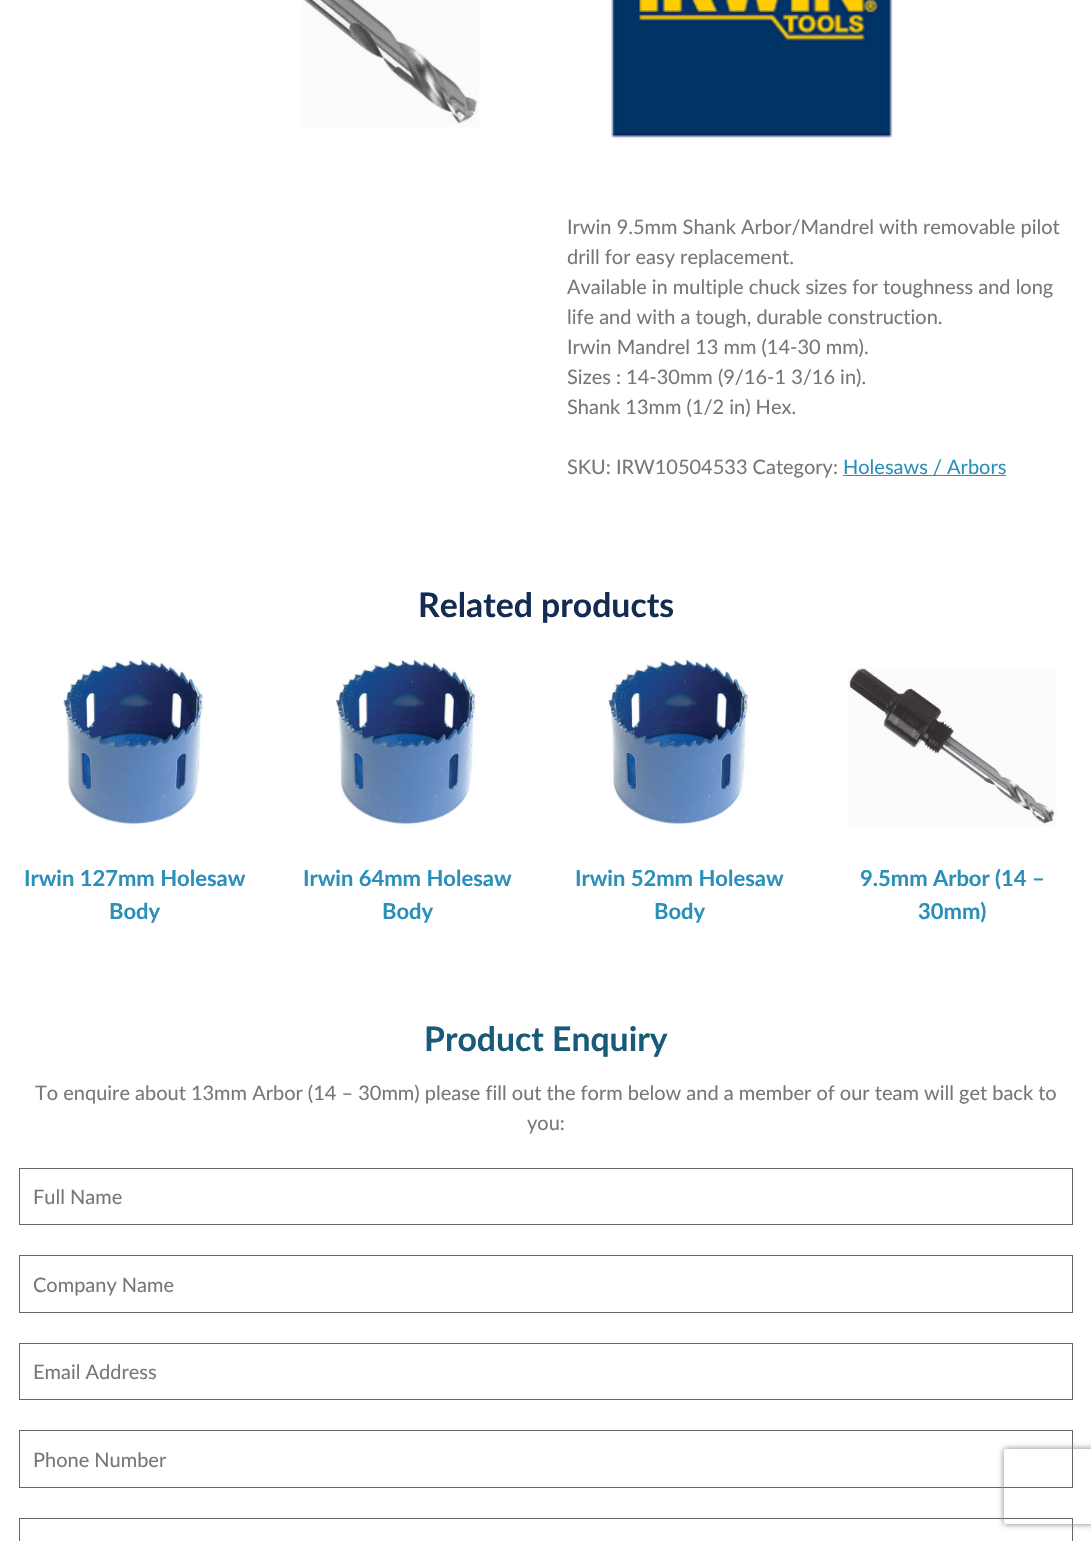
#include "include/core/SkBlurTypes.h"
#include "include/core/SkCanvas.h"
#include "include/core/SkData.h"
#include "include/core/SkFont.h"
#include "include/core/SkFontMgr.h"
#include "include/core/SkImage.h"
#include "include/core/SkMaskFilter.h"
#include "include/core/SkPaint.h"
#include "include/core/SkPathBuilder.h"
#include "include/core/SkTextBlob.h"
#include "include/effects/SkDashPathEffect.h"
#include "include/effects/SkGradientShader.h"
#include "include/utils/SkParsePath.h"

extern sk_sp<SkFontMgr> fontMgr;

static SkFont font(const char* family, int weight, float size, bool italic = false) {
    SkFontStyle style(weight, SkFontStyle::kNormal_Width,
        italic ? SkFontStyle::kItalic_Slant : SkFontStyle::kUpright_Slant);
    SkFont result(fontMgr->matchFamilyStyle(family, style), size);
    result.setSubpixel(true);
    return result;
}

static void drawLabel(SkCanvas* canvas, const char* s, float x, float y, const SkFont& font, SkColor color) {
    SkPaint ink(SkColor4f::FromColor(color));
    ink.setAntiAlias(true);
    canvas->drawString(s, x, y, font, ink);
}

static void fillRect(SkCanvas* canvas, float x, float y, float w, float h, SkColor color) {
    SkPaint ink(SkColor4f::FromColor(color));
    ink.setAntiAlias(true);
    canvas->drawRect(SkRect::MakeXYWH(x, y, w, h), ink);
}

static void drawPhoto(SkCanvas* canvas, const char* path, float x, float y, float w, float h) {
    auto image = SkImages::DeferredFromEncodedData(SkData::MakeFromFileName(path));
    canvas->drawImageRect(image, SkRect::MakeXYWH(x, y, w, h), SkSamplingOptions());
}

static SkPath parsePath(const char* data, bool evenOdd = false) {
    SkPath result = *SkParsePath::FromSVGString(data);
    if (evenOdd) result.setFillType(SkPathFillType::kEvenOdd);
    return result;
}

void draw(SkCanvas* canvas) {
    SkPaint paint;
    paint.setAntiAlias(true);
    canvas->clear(0xFFFFFFFF);
    drawPhoto(canvas, "assets/img1.png", 301, 0, 178, 127);
    drawPhoto(canvas, "assets/img2.png", 611, 0, 282, 139);
    SkFont font1 = font("Lato", 400, 20);
    drawLabel(canvas, "Irwin 9.5mm Shank Arbor/Mandrel with removable pilot", 567, 234, font1, 0xFF777777);
    drawLabel(canvas, "drill for easy replacement.", 567, 264, font1, 0xFF777777);
    drawLabel(canvas, "Available in multiple chuck sizes for toughness and long", 567, 294, font1, 0xFF777777);
    drawLabel(canvas, "life and with a tough, durable construction.", 567, 324, font1, 0xFF777777);
    drawLabel(canvas, "Irwin Mandrel 13 mm (14-30 mm).", 567, 354, font1, 0xFF777777);
    drawLabel(canvas, "Sizes : 14-30mm (9/16-1 3/16 in).", 567, 384, font1, 0xFF777777);
    drawLabel(canvas, "Shank 13mm (1/2 in) Hex.", 567, 414, font1, 0xFF777777);
    drawLabel(canvas, "SKU: IRW10504533 Category:", 567, 474, font1, 0xFF777777);
    drawLabel(canvas, "Holesaws / Arbors", 843, 474, font1, 0xFF2A90BA);
    fillRect(canvas, 843, 475, 163, 1, 0xFF2A90BA);
    SkFont font2 = font("Lato", 700, 33.75f);
    drawLabel(canvas, "Related products", 418, 617, font2, 0xFF132C51);
    drawPhoto(canvas, "assets/img3.png", 62, 658, 143, 168);
    SkFont font3 = font("Lato", 700, 22);
    drawLabel(canvas, "Irwin 127mm Holesaw", 24, 886, font3, 0xFF2A90BA);
    drawLabel(canvas, "Body", 109, 919, font3, 0xFF2A90BA);
    drawPhoto(canvas, "assets/img4.png", 335, 658, 142, 169);
    drawLabel(canvas, "Irwin 64mm Holesaw", 303, 886, font3, 0xFF2A90BA);
    drawLabel(canvas, "Body", 382, 919, font3, 0xFF2A90BA);
    drawPhoto(canvas, "assets/img3.png", 607, 658, 143, 168);
    drawLabel(canvas, "Irwin 52mm Holesaw", 575, 886, font3, 0xFF2A90BA);
    drawLabel(canvas, "Body", 654, 919, font3, 0xFF2A90BA);
    drawPhoto(canvas, "assets/img5.png", 848, 667, 209, 159);
    drawLabel(canvas, "9.5mm Arbor (14 –", 860, 886, font3, 0xFF2A90BA);
    drawLabel(canvas, "30mm)", 918, 919, font3, 0xFF2A90BA);
    drawLabel(canvas, "Product Enquiry", 424, 1051, font2, 0xFF195A78);
    drawLabel(canvas, "To enquire about 13mm Arbor (14 – 30mm) please fill out the form below and a member of our team will get back to", 35, 1100, font1, 0xFF777777);
    drawLabel(canvas, "you:", 527, 1130, font1, 0xFF777777);
    paint.setStroke(true);
    paint.setStrokeWidth(1);
    paint.setColor(0xFF666666);
    canvas->drawRect(SkRect::MakeXYWH(19.5f, 1168.5f, 1053, 56), paint);
    drawLabel(canvas, "Full Name", 33, 1204, font1, 0xFF777777);
    canvas->drawRect(SkRect::MakeXYWH(19.5f, 1255.5f, 1053, 57), paint);
    drawLabel(canvas, "Company Name", 33, 1292, font1, 0xFF777777);
    canvas->drawRect(SkRect::MakeXYWH(19.5f, 1343.5f, 1053, 56), paint);
    drawLabel(canvas, "Email Address", 33, 1379, font1, 0xFF777777);
    canvas->drawRect(SkRect::MakeXYWH(19.5f, 1430.5f, 1053, 57), paint);
    drawLabel(canvas, "Phone Number", 33, 1467, font1, 0xFF777777);
    canvas->drawRect(SkRect::MakeXYWH(19.5f, 1518.5f, 1053, 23), paint);
    canvas->save();
    canvas->clipPath(parsePath("M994 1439H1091V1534H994ZM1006.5 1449H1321.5C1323 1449 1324 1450 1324 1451.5V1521.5C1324 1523 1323 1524 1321.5 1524H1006.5C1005 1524 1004 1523 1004 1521.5V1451.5C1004 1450 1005 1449 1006.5 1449Z", true), true);
    paint.setStroke(false);
    paint.setColor(0xFF808080);
    paint.setMaskFilter(SkMaskFilter::MakeBlur(kNormal_SkBlurStyle, 3));
    canvas->drawRoundRect(SkRect::MakeXYWH(1004, 1449, 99, 75), 2.5f, 2.5f, paint);
    paint.setMaskFilter(nullptr);
    canvas->restore();
}
